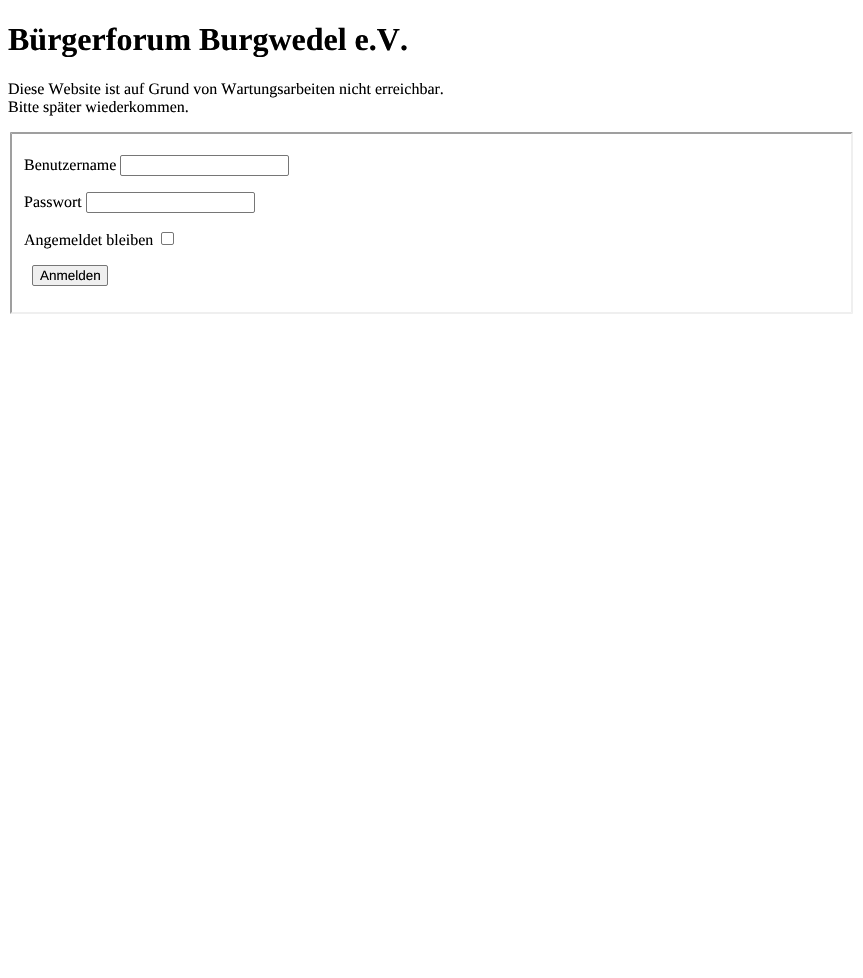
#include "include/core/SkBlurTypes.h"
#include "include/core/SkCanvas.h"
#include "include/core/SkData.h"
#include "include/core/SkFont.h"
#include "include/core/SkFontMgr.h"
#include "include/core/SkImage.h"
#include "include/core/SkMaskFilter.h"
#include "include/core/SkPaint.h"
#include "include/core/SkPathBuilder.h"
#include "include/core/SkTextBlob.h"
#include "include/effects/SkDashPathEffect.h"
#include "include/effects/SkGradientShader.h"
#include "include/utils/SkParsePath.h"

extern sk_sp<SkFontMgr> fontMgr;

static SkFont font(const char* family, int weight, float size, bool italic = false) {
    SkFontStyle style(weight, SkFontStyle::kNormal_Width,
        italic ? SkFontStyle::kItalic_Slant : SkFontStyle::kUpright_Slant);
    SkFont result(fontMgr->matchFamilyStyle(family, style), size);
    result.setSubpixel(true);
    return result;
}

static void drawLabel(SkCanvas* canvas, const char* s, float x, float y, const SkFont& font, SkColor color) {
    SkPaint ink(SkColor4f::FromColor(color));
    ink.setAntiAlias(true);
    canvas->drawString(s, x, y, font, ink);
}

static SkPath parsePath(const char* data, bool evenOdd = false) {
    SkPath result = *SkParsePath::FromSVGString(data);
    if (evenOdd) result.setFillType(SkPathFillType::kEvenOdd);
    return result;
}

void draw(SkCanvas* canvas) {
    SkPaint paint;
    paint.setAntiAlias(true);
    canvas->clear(0xFFFFFFFF);
    SkFont font1 = font("Liberation Serif", 700, 32);
    drawLabel(canvas, "Bürgerforum Burgwedel e.V.", 8, 50, font1, 0xFF000000);
    SkFont font2 = font("Liberation Serif", 400, 16);
    drawLabel(canvas, "Diese Website ist auf Grund von Wartungsarbeiten nicht erreichbar.", 8, 94, font2, 0xFF000000);
    drawLabel(canvas, "Bitte später wiederkommen.", 8, 112, font2, 0xFF000000);
    paint.setColor(0xFF9F9F9F);
    canvas->drawPath(parsePath("M10 132H853L851 134H12Z"), paint);
    paint.setColor(0xFFEFEFEF);
    canvas->drawPath(parsePath("M853 132V314L851 312V134Z"), paint);
    canvas->drawPath(parsePath("M853 314H10L12 312H851Z"), paint);
    paint.setColor(0xFF9F9F9F);
    canvas->drawPath(parsePath("M10 314V132L12 134V312Z"), paint);
    drawLabel(canvas, "Benutzername", 24, 170, font2, 0xFF000000);
    paint.setStroke(true);
    paint.setStrokeWidth(1);
    paint.setColor(0xFF767676);
    canvas->drawRoundRect(SkRect::MakeXYWH(120.5f, 155.5f, 168, 20), 1.5f, 1.5f, paint);
    drawLabel(canvas, "Passwort", 24, 207, font2, 0xFF000000);
    canvas->drawRoundRect(SkRect::MakeXYWH(86.5f, 192.5f, 168, 20), 1.5f, 1.5f, paint);
    drawLabel(canvas, "Angemeldet bleiben", 24, 245, font2, 0xFF000000);
    canvas->drawRoundRect(SkRect::MakeXYWH(161.5f, 232.5f, 12, 12), 1.5f, 1.5f, paint);
    paint.setStroke(false);
    paint.setColor(0xFFEFEFEF);
    canvas->drawRoundRect(SkRect::MakeXYWH(32.5f, 265.5f, 75, 20), 1.5f, 1.5f, paint);
    paint.setStroke(true);
    paint.setColor(0xFF767676);
    canvas->drawRoundRect(SkRect::MakeXYWH(32.5f, 265.5f, 75, 20), 1.5f, 1.5f, paint);
    SkFont font3 = font("Liberation Sans", 400, 13.5f);
    drawLabel(canvas, "Anmelden", 40, 280, font3, 0xFF000000);
}
